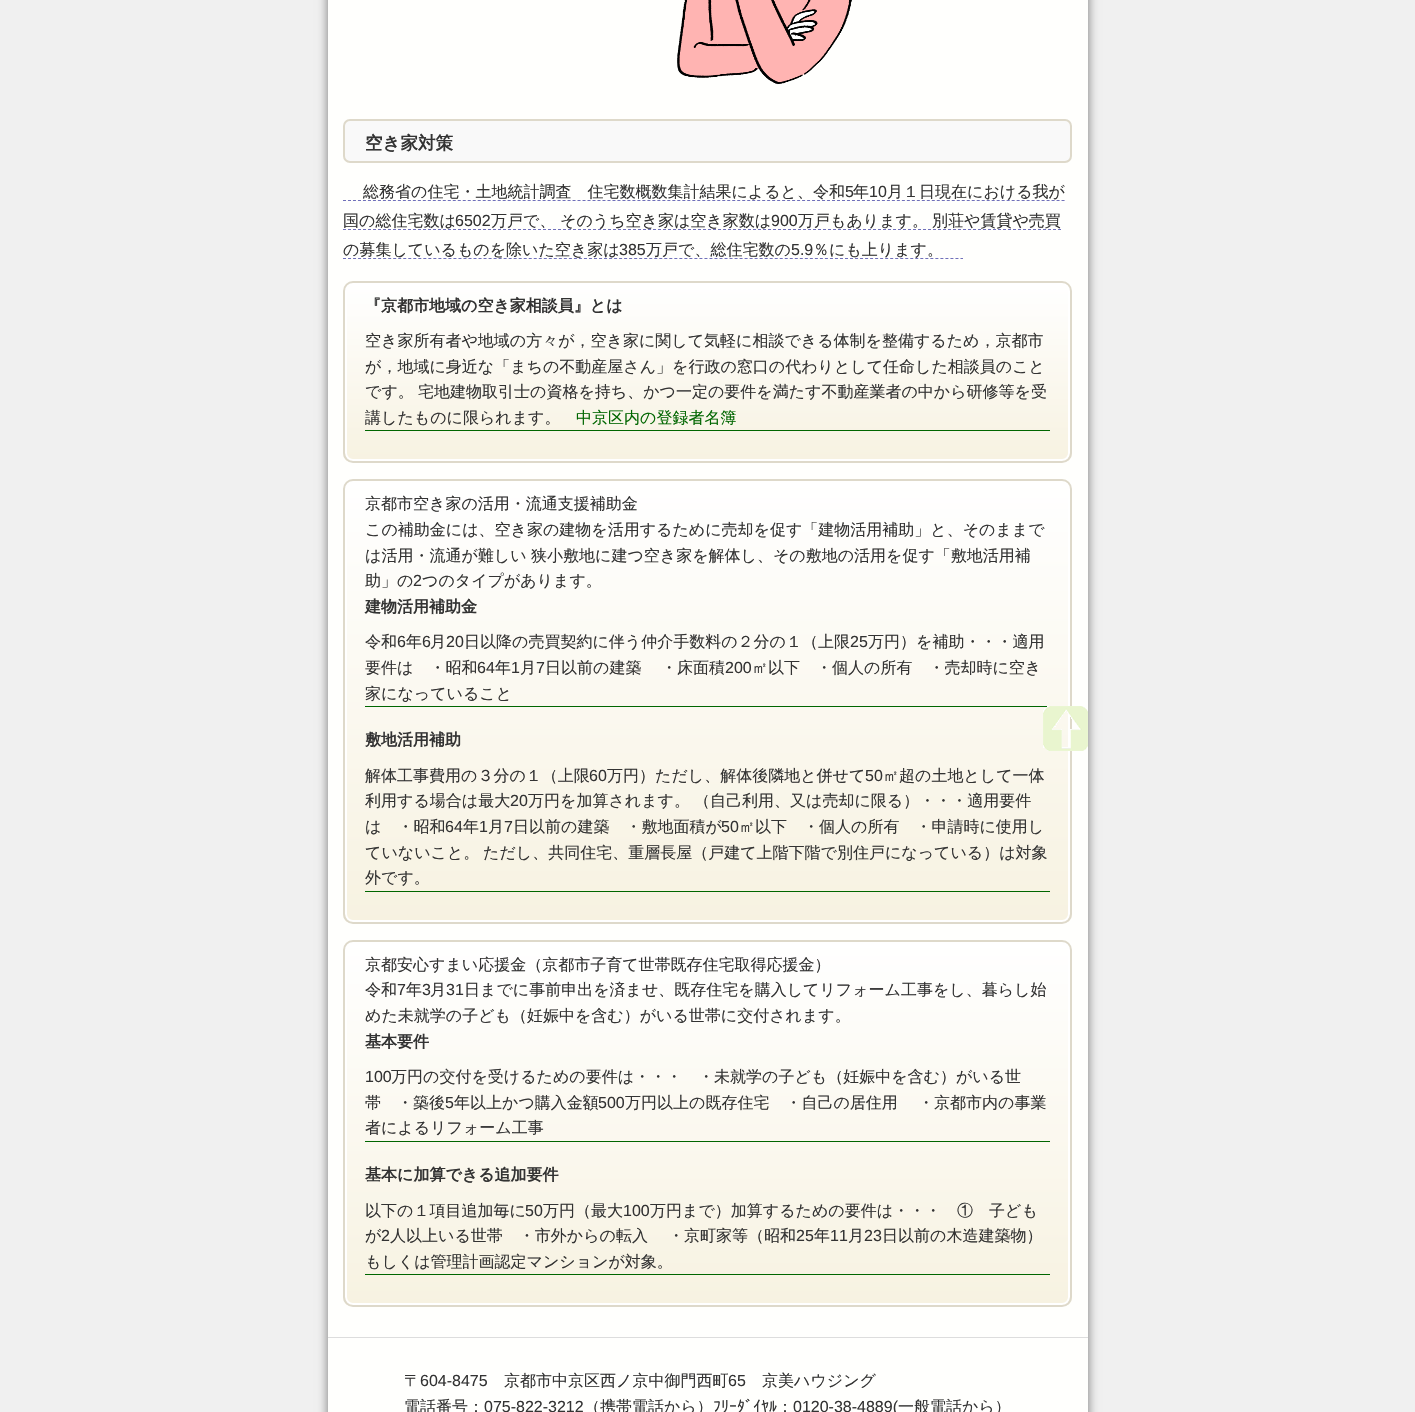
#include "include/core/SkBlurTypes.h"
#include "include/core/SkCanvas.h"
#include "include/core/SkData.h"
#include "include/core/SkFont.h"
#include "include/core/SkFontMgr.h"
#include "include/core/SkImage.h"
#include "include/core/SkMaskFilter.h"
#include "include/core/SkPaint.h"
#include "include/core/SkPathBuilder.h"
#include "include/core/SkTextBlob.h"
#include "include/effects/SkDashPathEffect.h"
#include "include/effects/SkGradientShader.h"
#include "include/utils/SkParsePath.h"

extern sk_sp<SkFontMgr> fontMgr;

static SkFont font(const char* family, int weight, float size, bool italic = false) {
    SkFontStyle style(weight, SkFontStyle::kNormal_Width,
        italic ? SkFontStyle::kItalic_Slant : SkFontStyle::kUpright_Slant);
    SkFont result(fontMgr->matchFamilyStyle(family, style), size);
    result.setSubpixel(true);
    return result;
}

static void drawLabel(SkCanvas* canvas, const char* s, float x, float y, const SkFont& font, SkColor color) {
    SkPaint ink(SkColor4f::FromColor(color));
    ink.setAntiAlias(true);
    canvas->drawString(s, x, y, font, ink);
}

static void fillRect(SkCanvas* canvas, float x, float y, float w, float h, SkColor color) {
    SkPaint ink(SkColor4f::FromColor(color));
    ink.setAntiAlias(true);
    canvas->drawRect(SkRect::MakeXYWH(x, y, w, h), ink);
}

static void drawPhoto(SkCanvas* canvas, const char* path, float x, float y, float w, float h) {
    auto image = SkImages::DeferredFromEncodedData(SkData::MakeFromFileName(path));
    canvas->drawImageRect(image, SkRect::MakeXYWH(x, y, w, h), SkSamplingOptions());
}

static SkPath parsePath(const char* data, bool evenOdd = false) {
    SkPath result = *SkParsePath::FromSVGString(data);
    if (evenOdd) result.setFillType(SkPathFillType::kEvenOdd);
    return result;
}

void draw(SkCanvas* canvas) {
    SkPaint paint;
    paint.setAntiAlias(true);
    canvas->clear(0xFFF0F0F0);
    paint.setColor(0x80000000);
    paint.setMaskFilter(SkMaskFilter::MakeBlur(kNormal_SkBlurStyle, 5));
    canvas->drawRect(SkRect::MakeXYWH(328, -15, 760, 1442), paint);
    paint.setMaskFilter(nullptr);
    fillRect(canvas, 328, 0, 760, 1412, 0xFFFFFFFD);
    drawPhoto(canvas, "assets/img1.png", 677, 0, 175, 85);
    paint.setColor(0xFFF9F9F9);
    canvas->drawRoundRect(SkRect::MakeXYWH(344, 120, 727, 42), 6, 6, paint);
    paint.setStroke(true);
    paint.setStrokeWidth(2);
    paint.setColor(0xFFDED9CA);
    canvas->drawRoundRect(SkRect::MakeXYWH(344, 120, 727, 42), 6, 6, paint);
    SkFont font1 = font("WenQuanYi Zen Hei", 700, 17.5f);
    drawLabel(canvas, "空き家対策", 365, 149, font1, 0xFF333333);
    SkFont font2 = font("WenQuanYi Zen Hei", 500, 16);
    drawLabel(canvas, "総務省の住宅・土地統計調査　住宅数概数集計結果によると、令和", 363, 197, font2, 0xFF333333);
    SkFont font3 = font("Liberation Sans", 400, 16);
    drawLabel(canvas, "5", 845, 197, font3, 0xFF333333);
    paint.setStrokeWidth(1);
    paint.setColor(0xFF7070BA);
    paint.setPathEffect(SkDashPathEffect::Make({{3, 1.99f}}, 0));
    canvas->drawPath(parsePath("M343 200.5H1065"), paint);
    paint.setPathEffect(nullptr);
    drawLabel(canvas, "年", 853, 197, font2, 0xFF333333);
    drawLabel(canvas, "10", 869, 197, font3, 0xFF333333);
    drawLabel(canvas, "月１日現在における我が", 887, 197, font2, 0xFF333333);
    drawLabel(canvas, "国の総住宅数は", 343, 226, font2, 0xFF333333);
    drawLabel(canvas, "6502", 455, 226, font3, 0xFF333333);
    drawLabel(canvas, "万戸で、", 491, 226, font2, 0xFF333333);
    paint.setPathEffect(SkDashPathEffect::Make({{3, 2}}, 0));
    canvas->drawPath(parsePath("M343 229.5H1061"), paint);
    paint.setPathEffect(nullptr);
    drawLabel(canvas, "そのうち空き家は空き家数は", 560, 226, font2, 0xFF333333);
    drawLabel(canvas, "900", 771, 226, font3, 0xFF333333);
    drawLabel(canvas, "万戸もあります。", 798, 226, font2, 0xFF333333);
    drawLabel(canvas, "別荘や賃貸や売買", 932, 226, font2, 0xFF333333);
    drawLabel(canvas, "の募集しているものを除いた空き家は", 343, 255, font2, 0xFF333333);
    paint.setPathEffect(SkDashPathEffect::Make({{3, 2.02f}}, 0));
    canvas->drawPath(parsePath("M343 258.5H963"), paint);
    paint.setPathEffect(nullptr);
    drawLabel(canvas, "385", 619, 255, font3, 0xFF333333);
    drawLabel(canvas, "万戸で、総住宅数の", 646, 255, font2, 0xFF333333);
    drawLabel(canvas, "5.9", 791, 255, font3, 0xFF333333);
    drawLabel(canvas, "％にも上ります。", 813, 255, font2, 0xFF333333);
    canvas->save();
    canvas->clipPath(parsePath("M353 281H1062C1067.5 281 1072 285.5 1072 291V453C1072 458.5 1067.5 463 1062 463H353C347.5 463 343 458.5 343 453V291C343 285.5 347.5 281 353 281Z"), true);
    paint.setStroke(false);
    {
        const SkColor colors[] = {0xFFFFFFFF, 0xFFF7F2E1};
        const float stops[] = {0, 1};
        const SkPoint ends[] = {{708, 283}, {708, 461}};
        paint.setShader(SkGradientShader::MakeLinear(ends, colors, stops, 2, SkTileMode::kClamp));
        paint.setAlpha(255);
    }
    canvas->drawRect(SkRect::MakeXYWH(343, 283, 729, 178), paint);
    canvas->restore();
    paint.setStroke(true);
    paint.setStrokeWidth(2);
    paint.setShader(nullptr);
    paint.setColor(0xFFFFFFFF);
    canvas->drawRoundRect(SkRect::MakeXYWH(346, 284, 723, 176), 7, 7, paint);
    paint.setColor(0xFFDED9CA);
    canvas->drawRoundRect(SkRect::MakeXYWH(344, 282, 727, 180), 9, 9, paint);
    SkFont font4 = font("WenQuanYi Zen Hei", 700, 16);
    drawLabel(canvas, "『京都市地域の空き家相談員』とは", 365, 311, font4, 0xFF333333);
    fillRect(canvas, 365, 430, 685, 1, 0xFF006600);
    drawLabel(canvas, "空き家所有者や地域の方々が，空き家に関して気軽に相談できる体制を整備するため，京都市", 365, 346, font2, 0xFF333333);
    drawLabel(canvas, "が，地域に身近な「まちの不動産屋さん」を行政の窓口の代わりとして任命した相談員のこと", 365, 372, font2, 0xFF333333);
    drawLabel(canvas, "です。", 365, 397, font2, 0xFF333333);
    drawLabel(canvas, "宅地建物取引士の資格を持ち、かつ一定の要件を満たす不動産業者の中から研修等を受", 418, 397, font2, 0xFF333333);
    drawLabel(canvas, "講したものに限られます。", 365, 423, font2, 0xFF333333);
    drawLabel(canvas, "中京区内の登録者名簿", 576, 423, font2, 0xFF006600);
    canvas->save();
    canvas->clipPath(parsePath("M353 479H1062C1067.5 479 1072 483.5 1072 489V914C1072 919.5 1067.5 924 1062 924H353C347.5 924 343 919.5 343 914V489C343 483.5 347.5 479 353 479Z"), true);
    paint.setStroke(false);
    {
        const SkColor colors[] = {0xFFFFFFFF, 0xFFF7F2E1};
        const float stops[] = {0, 1};
        const SkPoint ends[] = {{708, 481}, {708, 922}};
        paint.setShader(SkGradientShader::MakeLinear(ends, colors, stops, 2, SkTileMode::kClamp));
        paint.setAlpha(255);
    }
    canvas->drawRect(SkRect::MakeXYWH(343, 481, 729, 441), paint);
    canvas->restore();
    paint.setStroke(true);
    paint.setShader(nullptr);
    paint.setColor(0xFFFFFFFF);
    canvas->drawRoundRect(SkRect::MakeXYWH(346, 482, 723, 439), 7, 7, paint);
    paint.setColor(0xFFDED9CA);
    canvas->drawRoundRect(SkRect::MakeXYWH(344, 480, 727, 443), 9, 9, paint);
    drawLabel(canvas, "京都市空き家の活用・流通支援補助金", 365, 509, font2, 0xFF333333);
    drawLabel(canvas, "この補助金には、空き家の建物を活用するために売却を促す「建物活用補助」と、そのままで", 365, 535, font2, 0xFF333333);
    drawLabel(canvas, "は活用・流通が難しい", 365, 561, font2, 0xFF333333);
    drawLabel(canvas, "狭小敷地に建つ空き家を解体し、その敷地の活用を促す「敷地活用補", 531, 561, font2, 0xFF333333);
    drawLabel(canvas, "助」の", 365, 586, font2, 0xFF333333);
    drawLabel(canvas, "2", 413, 586, font3, 0xFF333333);
    drawLabel(canvas, "つのタイプがあります。", 422, 586, font2, 0xFF333333);
    drawLabel(canvas, "建物活用補助金", 365, 612, font4, 0xFF333333);
    fillRect(canvas, 365, 706, 685, 1, 0xFF006600);
    drawLabel(canvas, "令和", 365, 647, font2, 0xFF333333);
    drawLabel(canvas, "6", 397, 647, font3, 0xFF333333);
    drawLabel(canvas, "年", 406, 647, font2, 0xFF333333);
    drawLabel(canvas, "6", 422, 647, font3, 0xFF333333);
    drawLabel(canvas, "月", 430, 647, font2, 0xFF333333);
    drawLabel(canvas, "20", 446, 647, font3, 0xFF333333);
    drawLabel(canvas, "日以降の売買契約に伴う仲介手数料の２分の１（上限", 464, 647, font2, 0xFF333333);
    drawLabel(canvas, "25", 850, 647, font3, 0xFF333333);
    drawLabel(canvas, "万円）を補助・・・適用", 868, 647, font2, 0xFF333333);
    drawLabel(canvas, "要件は　・昭和", 365, 673, font2, 0xFF333333);
    drawLabel(canvas, "64", 477, 673, font3, 0xFF333333);
    drawLabel(canvas, "年", 495, 673, font2, 0xFF333333);
    drawLabel(canvas, "1", 511, 673, font3, 0xFF333333);
    drawLabel(canvas, "月", 520, 673, font2, 0xFF333333);
    drawLabel(canvas, "7", 536, 673, font3, 0xFF333333);
    drawLabel(canvas, "日以前の建築", 545, 673, font2, 0xFF333333);
    drawLabel(canvas, "・床面積", 661, 673, font2, 0xFF333333);
    drawLabel(canvas, "200", 725, 673, font3, 0xFF333333);
    drawLabel(canvas, "㎡以下　・個人の所有　・売却時に空き", 752, 673, font2, 0xFF333333);
    drawLabel(canvas, "家になっていること", 365, 699, font2, 0xFF333333);
    drawLabel(canvas, "敷地活用補助", 365, 745, font4, 0xFF333333);
    fillRect(canvas, 365, 891, 685, 1, 0xFF006600);
    drawLabel(canvas, "解体工事費用の３分の１（上限", 365, 781, font2, 0xFF333333);
    drawLabel(canvas, "60", 589, 781, font3, 0xFF333333);
    drawLabel(canvas, "万円）ただし、解体後隣地と併せて", 607, 781, font2, 0xFF333333);
    drawLabel(canvas, "50", 865, 781, font3, 0xFF333333);
    drawLabel(canvas, "㎡超の土地として一体", 883, 781, font2, 0xFF333333);
    drawLabel(canvas, "利用する場合は最大", 365, 806, font2, 0xFF333333);
    drawLabel(canvas, "20", 510, 806, font3, 0xFF333333);
    drawLabel(canvas, "万円を加算されます。", 528, 806, font2, 0xFF333333);
    drawLabel(canvas, "（自己利用、又は売却に限る）・・・適用要件", 694, 806, font2, 0xFF333333);
    drawLabel(canvas, "は　・昭和", 365, 832, font2, 0xFF333333);
    drawLabel(canvas, "64", 445, 832, font3, 0xFF333333);
    drawLabel(canvas, "年", 463, 832, font2, 0xFF333333);
    drawLabel(canvas, "1", 479, 832, font3, 0xFF333333);
    drawLabel(canvas, "月", 488, 832, font2, 0xFF333333);
    drawLabel(canvas, "7", 504, 832, font3, 0xFF333333);
    drawLabel(canvas, "日以前の建築　・敷地面積が", 513, 832, font2, 0xFF333333);
    drawLabel(canvas, "50", 721, 832, font3, 0xFF333333);
    drawLabel(canvas, "㎡以下　・個人の所有　・申請時に使用し", 739, 832, font2, 0xFF333333);
    drawLabel(canvas, "ていないこと。", 365, 858, font2, 0xFF333333);
    drawLabel(canvas, "ただし、共同住宅、重層長屋（戸建て上階下階で別住戸になっている）は対象", 483, 858, font2, 0xFF333333);
    drawLabel(canvas, "外です。", 365, 883, font2, 0xFF333333);
    canvas->save();
    canvas->clipPath(parsePath("M353 940H1062C1067.5 940 1072 944.5 1072 950V1297C1072 1302.5 1067.5 1307 1062 1307H353C347.5 1307 343 1302.5 343 1297V950C343 944.5 347.5 940 353 940Z"), true);
    paint.setStroke(false);
    {
        const SkColor colors[] = {0xFFFFFFFF, 0xFFF7F2E1};
        const float stops[] = {0, 1};
        const SkPoint ends[] = {{708, 942}, {708, 1305}};
        paint.setShader(SkGradientShader::MakeLinear(ends, colors, stops, 2, SkTileMode::kClamp));
        paint.setAlpha(255);
    }
    canvas->drawRect(SkRect::MakeXYWH(343, 942, 729, 363), paint);
    canvas->restore();
    paint.setStroke(true);
    paint.setShader(nullptr);
    paint.setColor(0xFFFFFFFF);
    canvas->drawRoundRect(SkRect::MakeXYWH(346, 943, 723, 361), 7, 7, paint);
    paint.setColor(0xFFDED9CA);
    canvas->drawRoundRect(SkRect::MakeXYWH(344, 941, 727, 365), 9, 9, paint);
    drawLabel(canvas, "京都安心すまい応援金（京都市子育て世帯既存住宅取得応援金）", 365, 970, font2, 0xFF333333);
    drawLabel(canvas, "令和", 365, 995, font2, 0xFF333333);
    drawLabel(canvas, "7", 397, 995, font3, 0xFF333333);
    drawLabel(canvas, "年", 406, 995, font2, 0xFF333333);
    drawLabel(canvas, "3", 422, 995, font3, 0xFF333333);
    drawLabel(canvas, "月", 430, 995, font2, 0xFF333333);
    drawLabel(canvas, "31", 446, 995, font3, 0xFF333333);
    drawLabel(canvas, "日までに事前申出を済ませ、既存住宅を購入してリフォーム工事をし、暮らし始", 464, 995, font2, 0xFF333333);
    drawLabel(canvas, "めた未就学の子ども（妊娠中を含む）がいる世帯に交付されます。", 365, 1021, font2, 0xFF333333);
    drawLabel(canvas, "基本要件", 365, 1047, font4, 0xFF333333);
    fillRect(canvas, 365, 1141, 685, 1, 0xFF006600);
    drawLabel(canvas, "100", 365, 1082, font3, 0xFF333333);
    drawLabel(canvas, "万円の交付を受けるための要件は・・・　・未就学の子ども（妊娠中を含む）がいる世", 391, 1082, font2, 0xFF333333);
    drawLabel(canvas, "帯　・築後", 365, 1108, font2, 0xFF333333);
    drawLabel(canvas, "5", 445, 1108, font3, 0xFF333333);
    drawLabel(canvas, "年以上かつ購入金額", 454, 1108, font2, 0xFF333333);
    drawLabel(canvas, "500", 598, 1108, font3, 0xFF333333);
    drawLabel(canvas, "万円以上の既存住宅　・自己の居住用", 625, 1108, font2, 0xFF333333);
    drawLabel(canvas, "・京都市内の事業", 918, 1108, font2, 0xFF333333);
    drawLabel(canvas, "者によるリフォーム工事", 365, 1133, font2, 0xFF333333);
    drawLabel(canvas, "基本に加算できる追加要件", 365, 1180, font4, 0xFF333333);
    fillRect(canvas, 365, 1274, 685, 1, 0xFF006600);
    drawLabel(canvas, "以下の１項目追加毎に", 365, 1216, font2, 0xFF333333);
    drawLabel(canvas, "50", 525, 1216, font3, 0xFF333333);
    drawLabel(canvas, "万円（最大", 543, 1216, font2, 0xFF333333);
    drawLabel(canvas, "100", 623, 1216, font3, 0xFF333333);
    drawLabel(canvas, "万円まで）加算するための要件は・・・　①　子ども", 650, 1216, font2, 0xFF333333);
    drawLabel(canvas, "が", 365, 1241, font2, 0xFF333333);
    drawLabel(canvas, "2", 381, 1241, font3, 0xFF333333);
    drawLabel(canvas, "人以上いる世帯　・市外からの転入", 390, 1241, font2, 0xFF333333);
    drawLabel(canvas, "・京町家等（昭和", 668, 1241, font2, 0xFF333333);
    drawLabel(canvas, "25", 796, 1241, font3, 0xFF333333);
    drawLabel(canvas, "年", 814, 1241, font2, 0xFF333333);
    drawLabel(canvas, "11", 830, 1241, font3, 0xFF333333);
    drawLabel(canvas, "月", 848, 1241, font2, 0xFF333333);
    drawLabel(canvas, "23", 864, 1241, font3, 0xFF333333);
    drawLabel(canvas, "日以前の木造建築物）", 882, 1241, font2, 0xFF333333);
    drawLabel(canvas, "もしくは管理計画認定マンションが対象。", 365, 1267, font2, 0xFF333333);
    drawPhoto(canvas, "assets/img2.png", 1043, 706, 45, 45);
    fillRect(canvas, 328, 1337, 760, 1, 0xFFDDDDDD);
    drawLabel(canvas, "〒", 404, 1386, font2, 0xFF333333);
    drawLabel(canvas, "604-8475", 420, 1386, font3, 0xFF333333);
    drawLabel(canvas, "京都市中京区西ノ京中御門西町", 504, 1386, font2, 0xFF333333);
    drawLabel(canvas, "65", 728, 1386, font3, 0xFF333333);
    drawLabel(canvas, "京美ハウジング", 762, 1386, font2, 0xFF333333);
    drawLabel(canvas, "電話番号：", 404, 1412, font2, 0xFF333333);
    drawLabel(canvas, "075-822-3212", 484, 1412, font3, 0xFF333333);
    drawLabel(canvas, "（携帯電話から）", 584, 1412, font2, 0xFF333333);
    SkFont font5 = font("IPAPGothic", 400, 16);
    drawLabel(canvas, "ﾌﾘｰﾀﾞｲﾔﾙ", 713, 1412, font5, 0xFF333333);
    drawLabel(canvas, "：", 777, 1412, font2, 0xFF333333);
    drawLabel(canvas, "0120-38-4889(", 793, 1412, font3, 0xFF333333);
    drawLabel(canvas, "一般電話から）", 898, 1412, font2, 0xFF333333);
}
